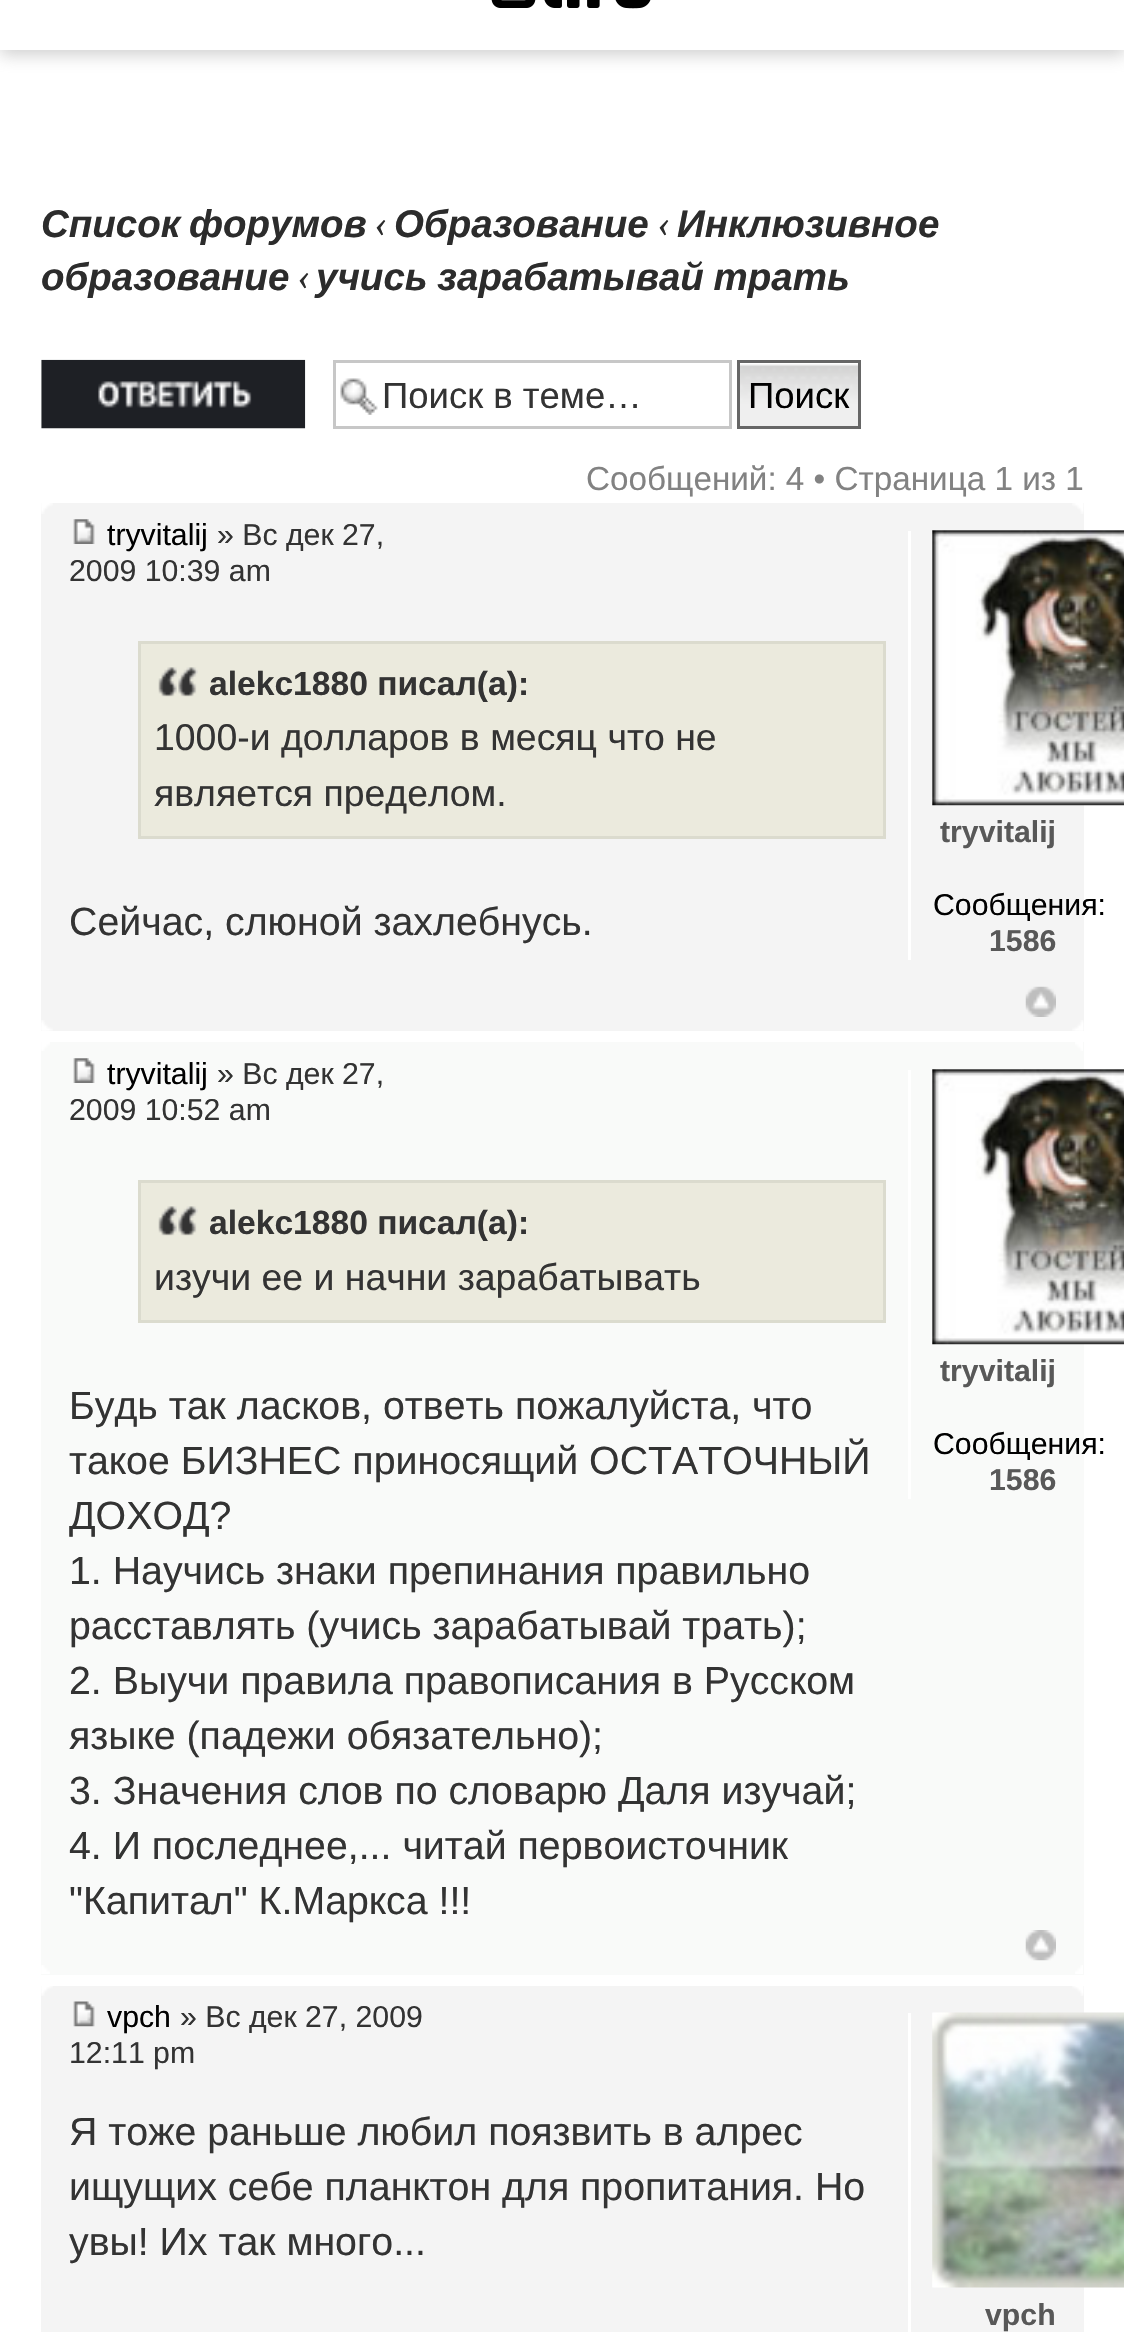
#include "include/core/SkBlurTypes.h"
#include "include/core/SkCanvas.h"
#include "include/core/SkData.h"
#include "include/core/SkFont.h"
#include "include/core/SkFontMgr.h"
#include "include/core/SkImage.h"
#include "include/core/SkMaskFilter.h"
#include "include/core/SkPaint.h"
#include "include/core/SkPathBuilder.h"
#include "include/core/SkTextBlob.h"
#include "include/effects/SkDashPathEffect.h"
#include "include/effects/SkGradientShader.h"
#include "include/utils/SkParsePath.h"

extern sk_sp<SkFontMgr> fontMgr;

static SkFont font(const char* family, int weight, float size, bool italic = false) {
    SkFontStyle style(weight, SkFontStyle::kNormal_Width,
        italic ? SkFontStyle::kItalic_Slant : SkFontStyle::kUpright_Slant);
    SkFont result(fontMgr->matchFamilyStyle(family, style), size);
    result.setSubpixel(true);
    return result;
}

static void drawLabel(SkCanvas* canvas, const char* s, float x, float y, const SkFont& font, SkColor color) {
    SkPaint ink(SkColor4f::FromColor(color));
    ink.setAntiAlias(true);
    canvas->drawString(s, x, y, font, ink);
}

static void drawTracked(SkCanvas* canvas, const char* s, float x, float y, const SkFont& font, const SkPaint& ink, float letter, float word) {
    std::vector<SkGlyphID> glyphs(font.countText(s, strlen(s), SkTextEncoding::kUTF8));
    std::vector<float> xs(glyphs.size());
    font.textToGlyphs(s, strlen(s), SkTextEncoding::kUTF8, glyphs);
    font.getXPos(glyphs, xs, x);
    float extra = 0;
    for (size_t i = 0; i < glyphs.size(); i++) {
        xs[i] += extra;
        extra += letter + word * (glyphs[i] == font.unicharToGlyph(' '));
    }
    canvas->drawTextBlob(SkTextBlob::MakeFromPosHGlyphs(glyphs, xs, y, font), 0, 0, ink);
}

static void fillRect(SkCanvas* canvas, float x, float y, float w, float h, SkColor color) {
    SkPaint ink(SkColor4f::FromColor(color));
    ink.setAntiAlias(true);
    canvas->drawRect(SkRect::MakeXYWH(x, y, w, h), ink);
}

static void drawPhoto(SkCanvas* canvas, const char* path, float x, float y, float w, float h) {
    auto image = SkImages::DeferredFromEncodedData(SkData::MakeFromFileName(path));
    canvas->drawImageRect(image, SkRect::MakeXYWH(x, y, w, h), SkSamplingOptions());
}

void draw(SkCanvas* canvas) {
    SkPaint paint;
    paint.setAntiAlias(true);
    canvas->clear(0xFFFFFFFF);
    paint.setColor(0x809F9F9F);
    paint.setMaskFilter(SkMaskFilter::MakeBlur(kNormal_SkBlurStyle, 8));
    canvas->drawRect(SkRect::MakeXYWH(0, -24, 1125, 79), paint);
    paint.setMaskFilter(nullptr);
    fillRect(canvas, 0, 0, 1124, 50, 0xFFFFFFFF);
    drawPhoto(canvas, "assets/img1.png", 491, 0, 160, 9);
    SkFont font1 = font("Liberation Sans", 700, 38.5f, true);
    paint.setColor(0xFF2C2C2C);
    drawTracked(canvas, "Список форумов", 41, 237, font1, paint, 0, -2);
    SkFont font2 = font("Caladea", 400, 38.5f, true);
    drawLabel(canvas, "‹", 375, 237, font2, 0xFF2C2C2C);
    drawLabel(canvas, "Образование", 394, 237, font1, 0xFF2C2C2C);
    drawLabel(canvas, "‹", 658, 237, font2, 0xFF2C2C2C);
    drawLabel(canvas, "Инклюзивное", 677, 237, font1, 0xFF2C2C2C);
    drawLabel(canvas, "образование", 41, 290, font1, 0xFF2C2C2C);
    drawLabel(canvas, "‹", 298, 290, font2, 0xFF2C2C2C);
    drawTracked(canvas, "учись зарабатывай трать", 316, 290, font1, paint, 0, -1);
    drawPhoto(canvas, "assets/img2.png", 41, 359, 265, 70);
    drawPhoto(canvas, "assets/img3.png", 340, 378, 38, 37);
    paint.setStroke(true);
    paint.setStrokeWidth(3);
    paint.setColor(0xFFC7C7C7);
    canvas->drawRect(SkRect::MakeXYWH(334.5f, 361.5f, 396, 66), paint);
    SkFont font3 = font("Liberation Sans", 400, 36.5f);
    drawLabel(canvas, "Поиск в теме…", 382, 408, font3, 0xFF333333);
    drawPhoto(canvas, "assets/img4.png", 740, 363, 118, 63);
    paint.setColor(0xFF666666);
    canvas->drawRect(SkRect::MakeXYWH(738.5f, 361.5f, 121, 66), paint);
    drawLabel(canvas, "Поиск", 748, 408, font3, 0xFF000000);
    SkFont font4 = font("Liberation Sans", 400, 33.25f);
    drawLabel(canvas, "Сообщений: 4 • Страница 1 из 1", 586, 490, font4, 0xFF828282);
    fillRect(canvas, 41, 503, 1043, 528, 0xFFF4F4F4);
    drawPhoto(canvas, "assets/img5.png", 41, 503, 12, 11);
    drawPhoto(canvas, "assets/img6.png", 1072, 503, 12, 11);
    drawPhoto(canvas, "assets/img7.png", 73, 519, 22, 25);
    SkFont font5 = font("Liberation Sans", 400, 30.25f);
    drawLabel(canvas, "tryvitalij", 107, 545, font5, 0xFF000000);
    drawLabel(canvas, "» Вс дек 27,", 217, 545, font5, 0xFF333333);
    drawLabel(canvas, "2009 10:39 am", 69, 581, font5, 0xFF333333);
    fillRect(canvas, 141, 644, 742, 192, 0xFFEBEADD);
    drawPhoto(canvas, "assets/img8.png", 158, 667, 40, 30);
    paint.setColor(0xFFDBDBCE);
    canvas->drawRect(SkRect::MakeXYWH(139.5f, 642.5f, 745, 195), paint);
    SkFont font6 = font("Liberation Sans", 700, 33.6f);
    drawLabel(canvas, "alekc1880 писал(а):", 209, 695, font6, 0xFF333333);
    SkFont font7 = font("Liberation Sans", 400, 37.4f);
    drawLabel(canvas, "1000-и долларов в месяц что не", 154, 750, font7, 0xFF333333);
    drawLabel(canvas, "является пределом.", 154, 806, font7, 0xFF333333);
    SkFont font8 = font("Liberation Sans", 400, 39.3f);
    drawLabel(canvas, "Сейчас, слюной захлебнусь.", 69, 935, font8, 0xFF333333);
    fillRect(canvas, 908, 531, 3, 429, 0xFFFFFFFF);
    drawPhoto(canvas, "assets/img9.png", 932, 530, 192, 276);
    SkFont font9 = font("Liberation Sans", 700, 30.25f);
    drawLabel(canvas, "tryvitalij", 940, 842, font9, 0xFF585858);
    drawLabel(canvas, "Сообщения:", 933, 915, font5, 0xFF000000);
    drawLabel(canvas, "1586", 989, 951, font9, 0xFF585858);
    drawPhoto(canvas, "assets/img10.png", 1025, 986, 31, 31);
    drawPhoto(canvas, "assets/img11.png", 41, 1020, 12, 11);
    drawPhoto(canvas, "assets/img12.png", 1072, 1020, 12, 11);
    fillRect(canvas, 41, 1042, 1043, 933, 0xFFF9FAF9);
    drawPhoto(canvas, "assets/img13.png", 41, 1042, 9, 9);
    drawPhoto(canvas, "assets/img14.png", 1075, 1042, 8, 9);
    drawPhoto(canvas, "assets/img15.png", 73, 1058, 22, 25);
    drawLabel(canvas, "tryvitalij", 107, 1084, font5, 0xFF000000);
    drawLabel(canvas, "» Вс дек 27,", 217, 1084, font5, 0xFF333333);
    drawLabel(canvas, "2009 10:52 am", 69, 1120, font5, 0xFF333333);
    fillRect(canvas, 141, 1183, 742, 137, 0xFFEBEADD);
    drawPhoto(canvas, "assets/img8.png", 158, 1206, 40, 30);
    canvas->drawRect(SkRect::MakeXYWH(139.5f, 1181.5f, 745, 140), paint);
    drawLabel(canvas, "alekc1880 писал(а):", 209, 1234, font6, 0xFF333333);
    drawLabel(canvas, "изучи ее и начни зарабатывать", 154, 1290, font7, 0xFF333333);
    drawLabel(canvas, "Будь так ласков, ответь пожалуйста, что", 69, 1419, font8, 0xFF333333);
    drawLabel(canvas, "такое БИЗНЕС приносящий ОСТАТОЧНЫЙ", 69, 1474, font8, 0xFF333333);
    drawLabel(canvas, "ДОХОД?", 69, 1529, font8, 0xFF333333);
    drawLabel(canvas, "1. Научись знаки препинания правильно", 69, 1584, font8, 0xFF333333);
    drawLabel(canvas, "расставлять (учись зарабатывай трать);", 69, 1639, font8, 0xFF333333);
    drawLabel(canvas, "2. Выучи правила правописания в Русском", 69, 1694, font8, 0xFF333333);
    drawLabel(canvas, "языке (падежи обязательно);", 69, 1749, font8, 0xFF333333);
    drawLabel(canvas, "3. Значения слов по словарю Даля изучай;", 69, 1804, font8, 0xFF333333);
    drawLabel(canvas, "4. И последнее,... читай первоисточник", 69, 1859, font8, 0xFF333333);
    drawLabel(canvas, "\"Капитал\" К.Маркса !!!", 69, 1914, font8, 0xFF333333);
    fillRect(canvas, 908, 1070, 3, 429, 0xFFFFFFFF);
    drawPhoto(canvas, "assets/img16.png", 932, 1069, 192, 276);
    drawLabel(canvas, "tryvitalij", 940, 1381, font9, 0xFF585858);
    drawLabel(canvas, "Сообщения:", 933, 1454, font5, 0xFF000000);
    drawLabel(canvas, "1586", 989, 1490, font9, 0xFF585858);
    drawPhoto(canvas, "assets/img17.png", 1025, 1930, 31, 31);
    drawPhoto(canvas, "assets/img18.png", 41, 1965, 9, 9);
    drawPhoto(canvas, "assets/img19.png", 1075, 1965, 8, 9);
    fillRect(canvas, 41, 1986, 1043, 346, 0xFFF4F4F4);
    drawPhoto(canvas, "assets/img20.png", 41, 1986, 12, 10);
    drawPhoto(canvas, "assets/img21.png", 1072, 1986, 12, 10);
    drawPhoto(canvas, "assets/img22.png", 73, 2001, 22, 26);
    drawLabel(canvas, "vpch", 107, 2027, font5, 0xFF000000);
    drawLabel(canvas, "» Вс дек 27, 2009", 180, 2027, font5, 0xFF333333);
    drawLabel(canvas, "12:11 pm", 69, 2063, font5, 0xFF333333);
    drawLabel(canvas, "Я тоже раньше любил поязвить в алрес", 69, 2145, font8, 0xFF333333);
    drawLabel(canvas, "ищущих себе планктон для пропитания. Но", 69, 2200, font8, 0xFF333333);
    drawLabel(canvas, "увы! Их так много...", 69, 2255, font8, 0xFF333333);
    fillRect(canvas, 908, 2013, 3, 319, 0xFFFFFFFF);
    drawPhoto(canvas, "assets/img23.png", 932, 2012, 192, 276);
    drawLabel(canvas, "vpch", 985, 2325, font9, 0xFF585858);
}
